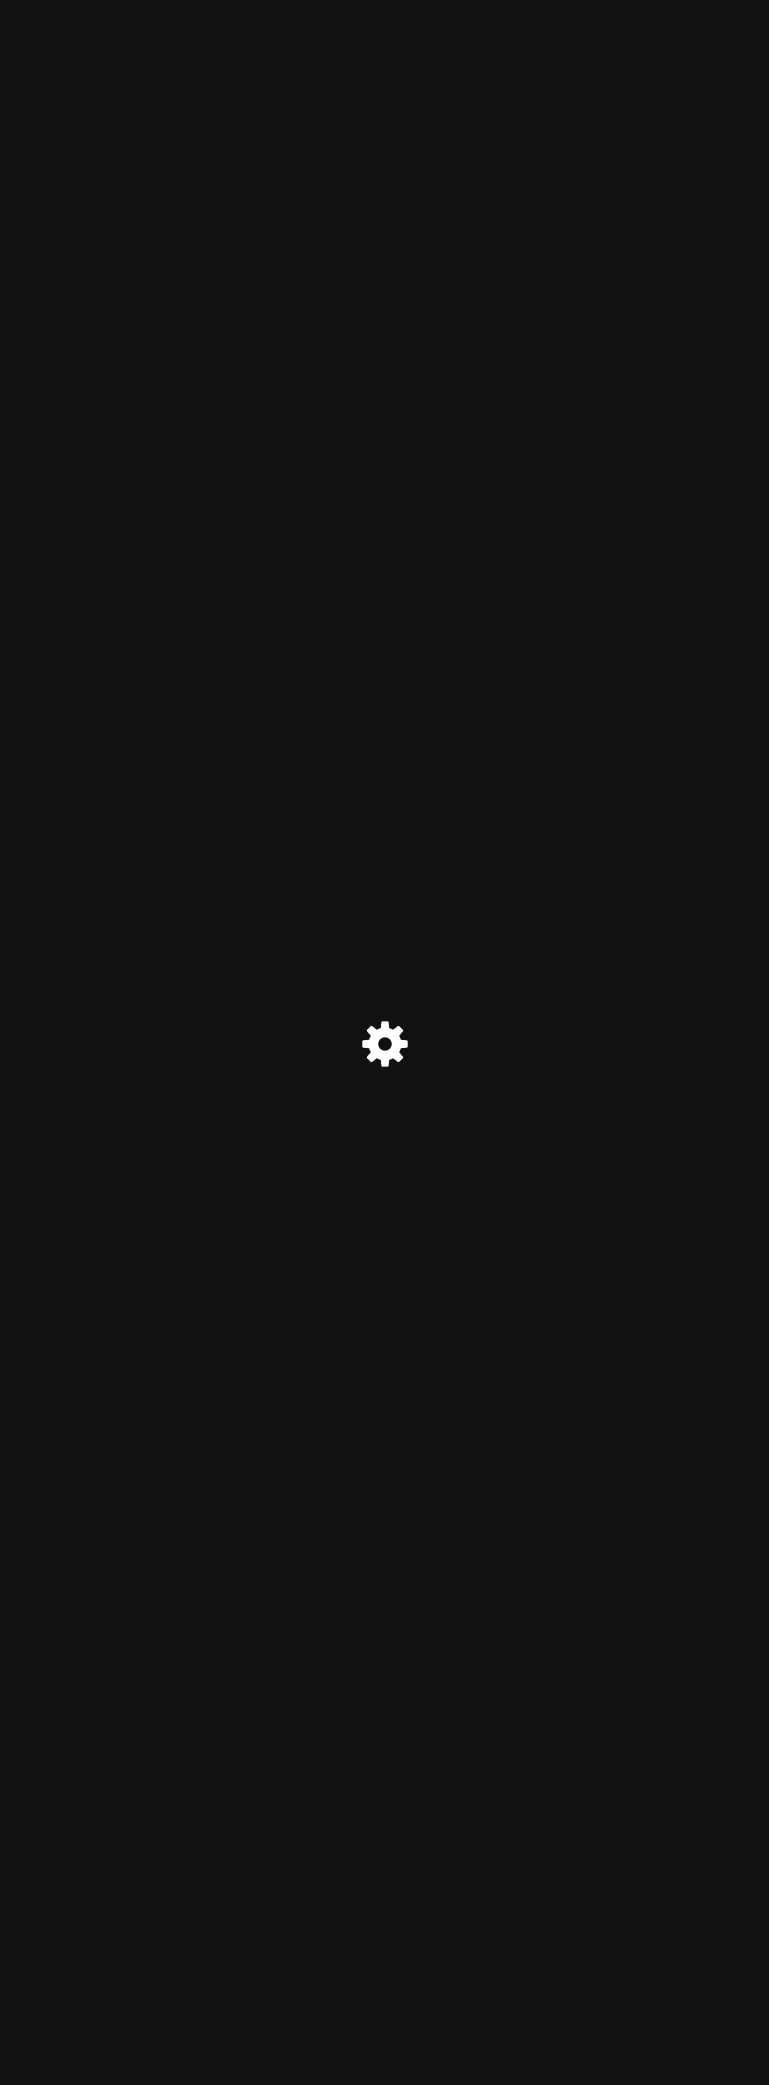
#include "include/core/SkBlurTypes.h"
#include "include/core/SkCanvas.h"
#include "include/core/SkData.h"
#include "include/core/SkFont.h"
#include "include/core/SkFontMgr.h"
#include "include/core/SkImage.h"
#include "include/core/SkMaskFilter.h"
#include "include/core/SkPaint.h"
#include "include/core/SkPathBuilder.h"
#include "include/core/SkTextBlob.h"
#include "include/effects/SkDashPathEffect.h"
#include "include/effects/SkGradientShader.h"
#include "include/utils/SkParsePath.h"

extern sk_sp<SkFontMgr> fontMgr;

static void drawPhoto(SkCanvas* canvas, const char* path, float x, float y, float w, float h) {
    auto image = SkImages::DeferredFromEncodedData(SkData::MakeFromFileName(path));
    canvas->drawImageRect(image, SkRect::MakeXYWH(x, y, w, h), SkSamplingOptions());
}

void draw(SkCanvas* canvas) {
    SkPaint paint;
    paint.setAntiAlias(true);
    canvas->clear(0xFF111111);
    drawPhoto(canvas, "assets/img1.png", 362, 1021, 46, 46);
}
